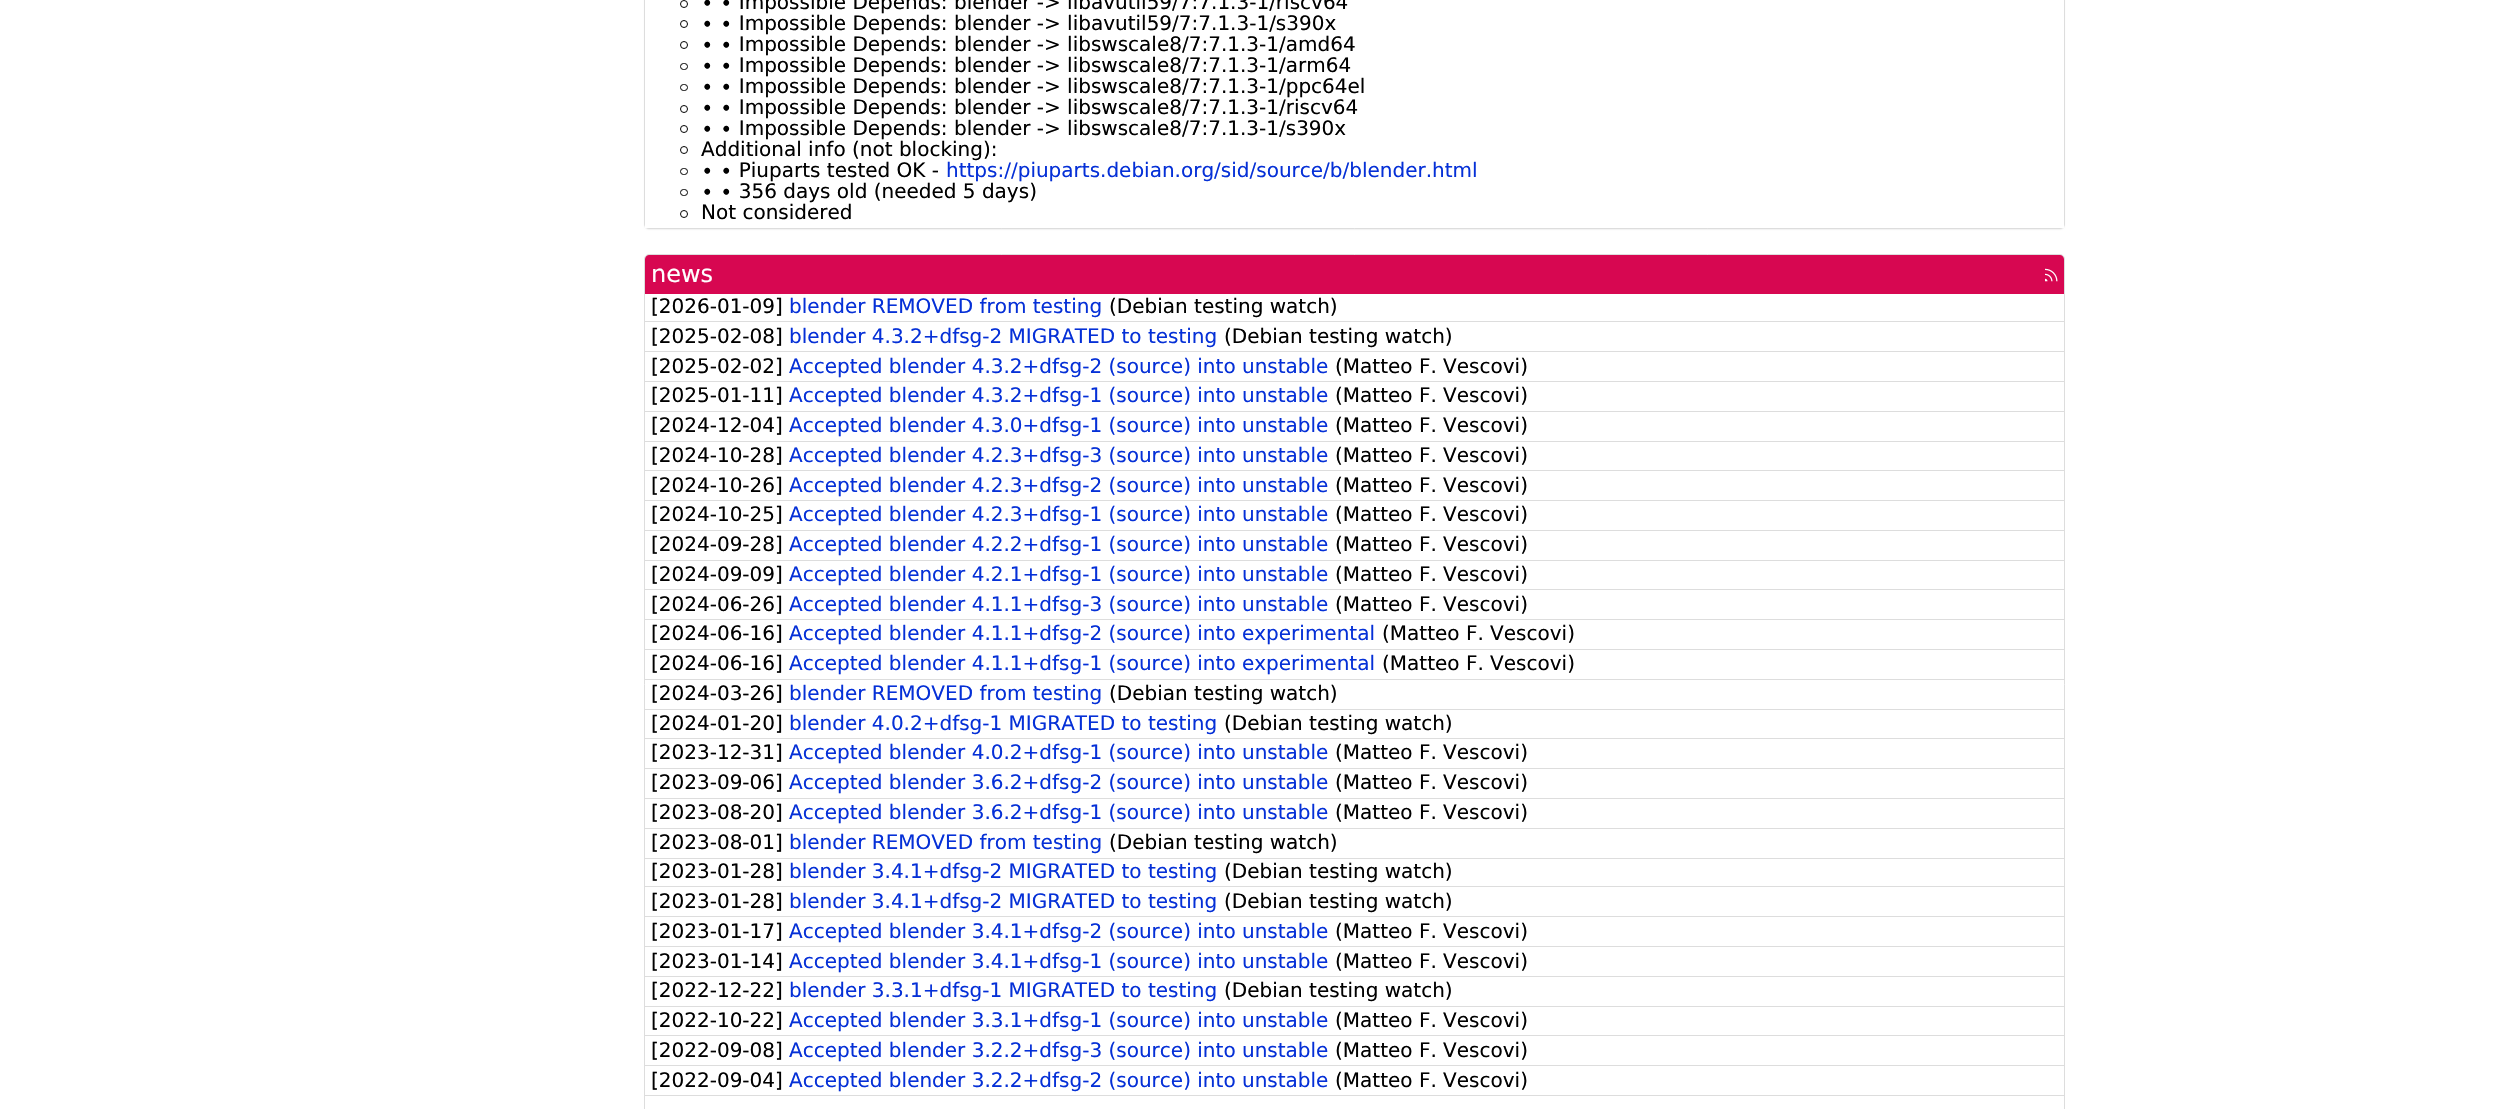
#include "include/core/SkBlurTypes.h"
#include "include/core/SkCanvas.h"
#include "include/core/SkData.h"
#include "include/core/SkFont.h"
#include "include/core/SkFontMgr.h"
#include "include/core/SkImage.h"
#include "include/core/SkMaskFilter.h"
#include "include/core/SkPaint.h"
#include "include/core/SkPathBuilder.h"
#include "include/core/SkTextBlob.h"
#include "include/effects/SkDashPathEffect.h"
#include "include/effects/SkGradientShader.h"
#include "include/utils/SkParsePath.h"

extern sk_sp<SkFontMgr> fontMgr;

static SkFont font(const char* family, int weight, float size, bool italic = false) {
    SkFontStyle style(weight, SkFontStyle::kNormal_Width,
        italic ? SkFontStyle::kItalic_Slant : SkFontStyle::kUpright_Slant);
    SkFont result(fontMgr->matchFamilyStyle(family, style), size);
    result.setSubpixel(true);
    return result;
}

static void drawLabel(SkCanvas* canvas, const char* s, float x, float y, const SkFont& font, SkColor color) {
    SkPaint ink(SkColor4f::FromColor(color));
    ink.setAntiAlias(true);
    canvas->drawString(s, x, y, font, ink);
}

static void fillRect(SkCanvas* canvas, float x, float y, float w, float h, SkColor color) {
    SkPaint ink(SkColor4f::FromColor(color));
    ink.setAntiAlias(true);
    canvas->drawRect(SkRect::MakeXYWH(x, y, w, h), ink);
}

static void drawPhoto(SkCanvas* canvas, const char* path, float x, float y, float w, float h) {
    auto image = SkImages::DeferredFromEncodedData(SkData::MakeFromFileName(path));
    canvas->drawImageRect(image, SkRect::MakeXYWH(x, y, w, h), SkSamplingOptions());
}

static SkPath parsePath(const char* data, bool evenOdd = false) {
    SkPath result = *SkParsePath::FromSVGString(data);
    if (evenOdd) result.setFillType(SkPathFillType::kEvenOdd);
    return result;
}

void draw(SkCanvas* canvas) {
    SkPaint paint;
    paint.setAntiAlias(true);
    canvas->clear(0xFFFFFFFF);
    paint.setColor(0x0D000000);
    paint.setMaskFilter(SkMaskFilter::MakeBlur(kNormal_SkBlurStyle, 0.5f));
    canvas->drawRoundRect(SkRect::MakeXYWH(644, -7, 1421, 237), 5, 5, paint);
    paint.setMaskFilter(nullptr);
    paint.setStroke(true);
    paint.setStrokeWidth(1);
    paint.setColor(0xFFDDDDDD);
    canvas->drawRoundRect(SkRect::MakeXYWH(644.5f, -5.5f, 1420, 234), 4.5f, 4.5f, paint);
    fillRect(canvas, 645, 0, 1419, 228, 0xFFFFFFFF);
    paint.setColor(0xFF000000);
    canvas->drawCircle(684, 4, 3.5f, paint);
    SkFont font1 = font("DejaVu Sans", 400, 20);
    drawLabel(canvas, "∙ ∙ Impossible Depends: blender -> libavutil59/7:7.1.3-1/riscv64", 701, 9, font1, 0xFF000000);
    canvas->drawCircle(684, 24, 3.5f, paint);
    drawLabel(canvas, "∙ ∙ Impossible Depends: blender -> libavutil59/7:7.1.3-1/s390x", 701, 30, font1, 0xFF000000);
    canvas->drawCircle(684, 45, 3.5f, paint);
    drawLabel(canvas, "∙ ∙ Impossible Depends: blender -> libswscale8/7:7.1.3-1/amd64", 701, 51, font1, 0xFF000000);
    canvas->drawRoundRect(SkRect::MakeXYWH(680.5f, 63.5f, 7, 6), 3, 3, paint);
    drawLabel(canvas, "∙ ∙ Impossible Depends: blender -> libswscale8/7:7.1.3-1/arm64", 701, 72, font1, 0xFF000000);
    canvas->drawRoundRect(SkRect::MakeXYWH(680.5f, 84.5f, 7, 6), 3, 3, paint);
    drawLabel(canvas, "∙ ∙ Impossible Depends: blender -> libswscale8/7:7.1.3-1/ppc64el", 701, 93, font1, 0xFF000000);
    canvas->drawCircle(684, 109, 3.5f, paint);
    drawLabel(canvas, "∙ ∙ Impossible Depends: blender -> libswscale8/7:7.1.3-1/riscv64", 701, 114, font1, 0xFF000000);
    canvas->drawCircle(684, 129, 3.5f, paint);
    drawLabel(canvas, "∙ ∙ Impossible Depends: blender -> libswscale8/7:7.1.3-1/s390x", 701, 135, font1, 0xFF000000);
    canvas->drawCircle(684, 150, 3.5f, paint);
    drawLabel(canvas, "Additional info (not blocking):", 701, 156, font1, 0xFF000000);
    canvas->drawRoundRect(SkRect::MakeXYWH(680.5f, 168.5f, 7, 6), 3, 3, paint);
    drawLabel(canvas, "∙ ∙ Piuparts tested OK -", 701, 177, font1, 0xFF000000);
    drawLabel(canvas, "https://piuparts.debian.org/sid/source/b/blender.html", 946, 177, font1, 0xFF0530D7);
    canvas->drawRoundRect(SkRect::MakeXYWH(680.5f, 189.5f, 7, 6), 3, 3, paint);
    drawLabel(canvas, "∙ ∙ 356 days old (needed 5 days)", 701, 198, font1, 0xFF000000);
    canvas->drawCircle(684, 214, 3.5f, paint);
    drawLabel(canvas, "Not considered", 701, 219, font1, 0xFF000000);
    paint.setColor(0xFFDDDDDD);
    canvas->drawRoundRect(SkRect::MakeXYWH(644.5f, 254.5f, 1420, 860), 4.5f, 4.5f, paint);
    paint.setStroke(false);
    paint.setColor(0xFFD70751);
    canvas->drawPath(parsePath("M649 255H2060C2062 255 2064 257 2064 259V295H645V259C645 257 647 255 649 255Z"), paint);
    SkFont font2 = font("DejaVu Sans", 400, 24);
    drawLabel(canvas, "news", 651, 282, font2, 0xFFFFFFFF);
    drawPhoto(canvas, "assets/img1.png", 2045, 268, 13, 14);
    fillRect(canvas, 645, 294, 1419, 1, 0xFFFFFFFF);
    fillRect(canvas, 645, 321, 1419, 1, 0xFFDDDDDD);
    drawLabel(canvas, "[2026-01-09]", 651, 313, font1, 0xFF000000);
    drawLabel(canvas, "blender REMOVED from testing", 789, 313, font1, 0xFF0530D7);
    drawLabel(canvas, "(Debian testing watch)", 1109, 313, font1, 0xFF000000);
    fillRect(canvas, 645, 351, 1419, 1, 0xFFDDDDDD);
    drawLabel(canvas, "[2025-02-08]", 651, 343, font1, 0xFF000000);
    drawLabel(canvas, "blender 4.3.2+dfsg-2 MIGRATED to testing", 789, 343, font1, 0xFF0530D7);
    drawLabel(canvas, "(Debian testing watch)", 1224, 343, font1, 0xFF000000);
    fillRect(canvas, 645, 381, 1419, 1, 0xFFDDDDDD);
    drawLabel(canvas, "[2025-02-02]", 651, 373, font1, 0xFF000000);
    drawLabel(canvas, "Accepted blender 4.3.2+dfsg-2 (source) into unstable", 789, 373, font1, 0xFF0530D7);
    drawLabel(canvas, "(Matteo F. Vescovi)", 1335, 373, font1, 0xFF000000);
    fillRect(canvas, 645, 411, 1419, 1, 0xFFDDDDDD);
    drawLabel(canvas, "[2025-01-11]", 651, 402, font1, 0xFF000000);
    drawLabel(canvas, "Accepted blender 4.3.2+dfsg-1 (source) into unstable", 789, 402, font1, 0xFF0530D7);
    drawLabel(canvas, "(Matteo F. Vescovi)", 1335, 402, font1, 0xFF000000);
    fillRect(canvas, 645, 441, 1419, 1, 0xFFDDDDDD);
    drawLabel(canvas, "[2024-12-04]", 651, 432, font1, 0xFF000000);
    drawLabel(canvas, "Accepted blender 4.3.0+dfsg-1 (source) into unstable", 789, 432, font1, 0xFF0530D7);
    drawLabel(canvas, "(Matteo F. Vescovi)", 1335, 432, font1, 0xFF000000);
    fillRect(canvas, 645, 470, 1419, 1, 0xFFDDDDDD);
    drawLabel(canvas, "[2024-10-28]", 651, 462, font1, 0xFF000000);
    drawLabel(canvas, "Accepted blender 4.2.3+dfsg-3 (source) into unstable", 789, 462, font1, 0xFF0530D7);
    drawLabel(canvas, "(Matteo F. Vescovi)", 1335, 462, font1, 0xFF000000);
    fillRect(canvas, 645, 500, 1419, 1, 0xFFDDDDDD);
    drawLabel(canvas, "[2024-10-26]", 651, 492, font1, 0xFF000000);
    drawLabel(canvas, "Accepted blender 4.2.3+dfsg-2 (source) into unstable", 789, 492, font1, 0xFF0530D7);
    drawLabel(canvas, "(Matteo F. Vescovi)", 1335, 492, font1, 0xFF000000);
    fillRect(canvas, 645, 530, 1419, 1, 0xFFDDDDDD);
    drawLabel(canvas, "[2024-10-25]", 651, 521, font1, 0xFF000000);
    drawLabel(canvas, "Accepted blender 4.2.3+dfsg-1 (source) into unstable", 789, 521, font1, 0xFF0530D7);
    drawLabel(canvas, "(Matteo F. Vescovi)", 1335, 521, font1, 0xFF000000);
    fillRect(canvas, 645, 560, 1419, 1, 0xFFDDDDDD);
    drawLabel(canvas, "[2024-09-28]", 651, 551, font1, 0xFF000000);
    drawLabel(canvas, "Accepted blender 4.2.2+dfsg-1 (source) into unstable", 789, 551, font1, 0xFF0530D7);
    drawLabel(canvas, "(Matteo F. Vescovi)", 1335, 551, font1, 0xFF000000);
    fillRect(canvas, 645, 589, 1419, 1, 0xFFDDDDDD);
    drawLabel(canvas, "[2024-09-09]", 651, 581, font1, 0xFF000000);
    drawLabel(canvas, "Accepted blender 4.2.1+dfsg-1 (source) into unstable", 789, 581, font1, 0xFF0530D7);
    drawLabel(canvas, "(Matteo F. Vescovi)", 1335, 581, font1, 0xFF000000);
    fillRect(canvas, 645, 619, 1419, 1, 0xFFDDDDDD);
    drawLabel(canvas, "[2024-06-26]", 651, 611, font1, 0xFF000000);
    drawLabel(canvas, "Accepted blender 4.1.1+dfsg-3 (source) into unstable", 789, 611, font1, 0xFF0530D7);
    drawLabel(canvas, "(Matteo F. Vescovi)", 1335, 611, font1, 0xFF000000);
    fillRect(canvas, 645, 649, 1419, 1, 0xFFDDDDDD);
    drawLabel(canvas, "[2024-06-16]", 651, 640, font1, 0xFF000000);
    drawLabel(canvas, "Accepted blender 4.1.1+dfsg-2 (source) into experimental", 789, 640, font1, 0xFF0530D7);
    drawLabel(canvas, "(Matteo F. Vescovi)", 1382, 640, font1, 0xFF000000);
    fillRect(canvas, 645, 679, 1419, 1, 0xFFDDDDDD);
    drawLabel(canvas, "[2024-06-16]", 651, 670, font1, 0xFF000000);
    drawLabel(canvas, "Accepted blender 4.1.1+dfsg-1 (source) into experimental", 789, 670, font1, 0xFF0530D7);
    drawLabel(canvas, "(Matteo F. Vescovi)", 1382, 670, font1, 0xFF000000);
    fillRect(canvas, 645, 709, 1419, 1, 0xFFDDDDDD);
    drawLabel(canvas, "[2024-03-26]", 651, 700, font1, 0xFF000000);
    drawLabel(canvas, "blender REMOVED from testing", 789, 700, font1, 0xFF0530D7);
    drawLabel(canvas, "(Debian testing watch)", 1109, 700, font1, 0xFF000000);
    fillRect(canvas, 645, 738, 1419, 1, 0xFFDDDDDD);
    drawLabel(canvas, "[2024-01-20]", 651, 730, font1, 0xFF000000);
    drawLabel(canvas, "blender 4.0.2+dfsg-1 MIGRATED to testing", 789, 730, font1, 0xFF0530D7);
    drawLabel(canvas, "(Debian testing watch)", 1224, 730, font1, 0xFF000000);
    fillRect(canvas, 645, 768, 1419, 1, 0xFFDDDDDD);
    drawLabel(canvas, "[2023-12-31]", 651, 759, font1, 0xFF000000);
    drawLabel(canvas, "Accepted blender 4.0.2+dfsg-1 (source) into unstable", 789, 759, font1, 0xFF0530D7);
    drawLabel(canvas, "(Matteo F. Vescovi)", 1335, 759, font1, 0xFF000000);
    fillRect(canvas, 645, 798, 1419, 1, 0xFFDDDDDD);
    drawLabel(canvas, "[2023-09-06]", 651, 789, font1, 0xFF000000);
    drawLabel(canvas, "Accepted blender 3.6.2+dfsg-2 (source) into unstable", 789, 789, font1, 0xFF0530D7);
    drawLabel(canvas, "(Matteo F. Vescovi)", 1335, 789, font1, 0xFF000000);
    fillRect(canvas, 645, 828, 1419, 1, 0xFFDDDDDD);
    drawLabel(canvas, "[2023-08-20]", 651, 819, font1, 0xFF000000);
    drawLabel(canvas, "Accepted blender 3.6.2+dfsg-1 (source) into unstable", 789, 819, font1, 0xFF0530D7);
    drawLabel(canvas, "(Matteo F. Vescovi)", 1335, 819, font1, 0xFF000000);
    fillRect(canvas, 645, 858, 1419, 1, 0xFFDDDDDD);
    drawLabel(canvas, "[2023-08-01]", 651, 849, font1, 0xFF000000);
    drawLabel(canvas, "blender REMOVED from testing", 789, 849, font1, 0xFF0530D7);
    drawLabel(canvas, "(Debian testing watch)", 1109, 849, font1, 0xFF000000);
    fillRect(canvas, 645, 886, 1419, 1, 0xFFDDDDDD);
    drawLabel(canvas, "[2023-01-28]", 651, 878, font1, 0xFF000000);
    drawLabel(canvas, "blender 3.4.1+dfsg-2 MIGRATED to testing", 789, 878, font1, 0xFF0530D7);
    drawLabel(canvas, "(Debian testing watch)", 1224, 878, font1, 0xFF000000);
    fillRect(canvas, 645, 916, 1419, 1, 0xFFDDDDDD);
    drawLabel(canvas, "[2023-01-28]", 651, 908, font1, 0xFF000000);
    drawLabel(canvas, "blender 3.4.1+dfsg-2 MIGRATED to testing", 789, 908, font1, 0xFF0530D7);
    drawLabel(canvas, "(Debian testing watch)", 1224, 908, font1, 0xFF000000);
    fillRect(canvas, 645, 946, 1419, 1, 0xFFDDDDDD);
    drawLabel(canvas, "[2023-01-17]", 651, 938, font1, 0xFF000000);
    drawLabel(canvas, "Accepted blender 3.4.1+dfsg-2 (source) into unstable", 789, 938, font1, 0xFF0530D7);
    drawLabel(canvas, "(Matteo F. Vescovi)", 1335, 938, font1, 0xFF000000);
    fillRect(canvas, 645, 976, 1419, 1, 0xFFDDDDDD);
    drawLabel(canvas, "[2023-01-14]", 651, 968, font1, 0xFF000000);
    drawLabel(canvas, "Accepted blender 3.4.1+dfsg-1 (source) into unstable", 789, 968, font1, 0xFF0530D7);
    drawLabel(canvas, "(Matteo F. Vescovi)", 1335, 968, font1, 0xFF000000);
    fillRect(canvas, 645, 1006, 1419, 1, 0xFFDDDDDD);
    drawLabel(canvas, "[2022-12-22]", 651, 997, font1, 0xFF000000);
    drawLabel(canvas, "blender 3.3.1+dfsg-1 MIGRATED to testing", 789, 997, font1, 0xFF0530D7);
    drawLabel(canvas, "(Debian testing watch)", 1224, 997, font1, 0xFF000000);
    fillRect(canvas, 645, 1035, 1419, 1, 0xFFDDDDDD);
    drawLabel(canvas, "[2022-10-22]", 651, 1027, font1, 0xFF000000);
    drawLabel(canvas, "Accepted blender 3.3.1+dfsg-1 (source) into unstable", 789, 1027, font1, 0xFF0530D7);
    drawLabel(canvas, "(Matteo F. Vescovi)", 1335, 1027, font1, 0xFF000000);
    fillRect(canvas, 645, 1065, 1419, 1, 0xFFDDDDDD);
    drawLabel(canvas, "[2022-09-08]", 651, 1057, font1, 0xFF000000);
    drawLabel(canvas, "Accepted blender 3.2.2+dfsg-3 (source) into unstable", 789, 1057, font1, 0xFF0530D7);
    drawLabel(canvas, "(Matteo F. Vescovi)", 1335, 1057, font1, 0xFF000000);
    fillRect(canvas, 645, 1095, 1419, 1, 0xFFDDDDDD);
    drawLabel(canvas, "[2022-09-04]", 651, 1087, font1, 0xFF000000);
    drawLabel(canvas, "Accepted blender 3.2.2+dfsg-2 (source) into unstable", 789, 1087, font1, 0xFF0530D7);
    drawLabel(canvas, "(Matteo F. Vescovi)", 1335, 1087, font1, 0xFF000000);
}
